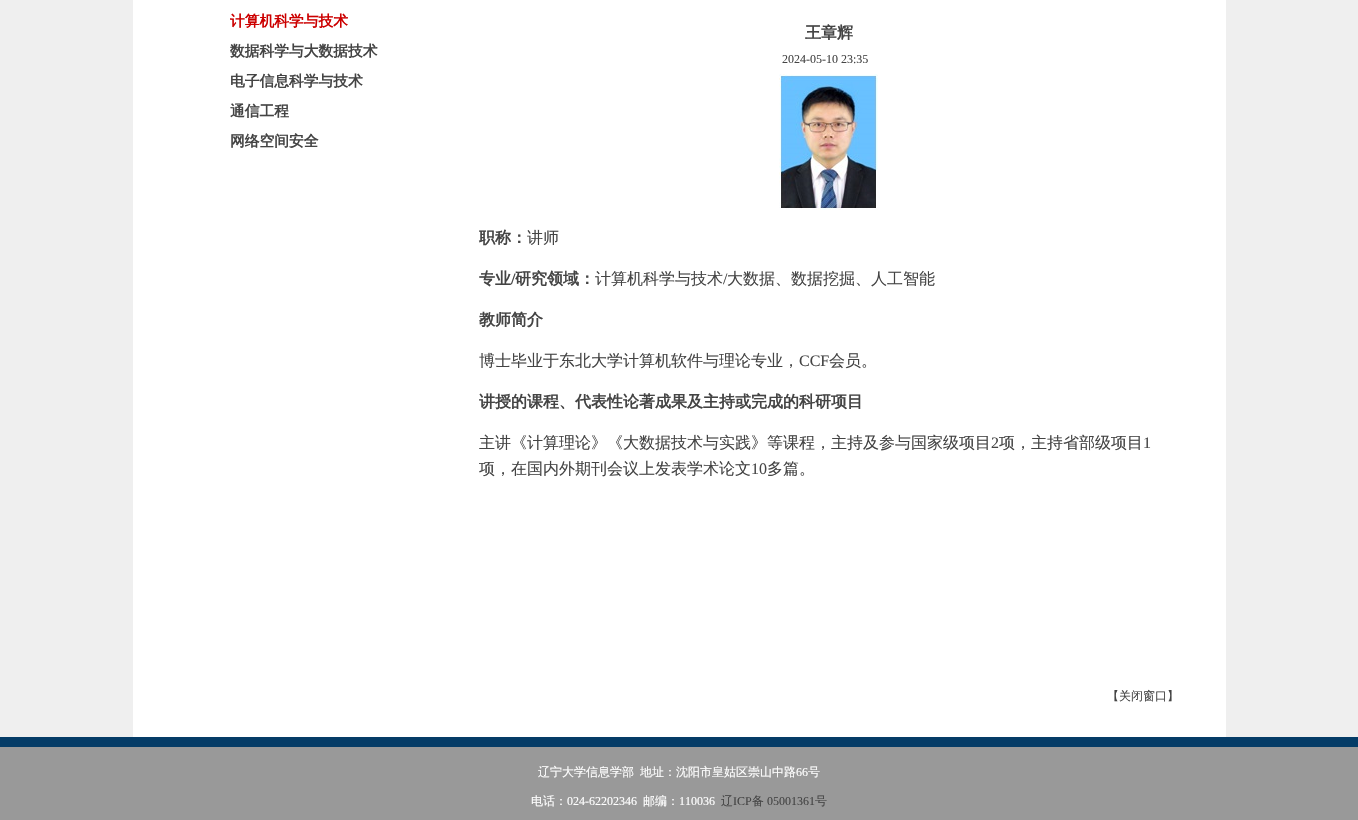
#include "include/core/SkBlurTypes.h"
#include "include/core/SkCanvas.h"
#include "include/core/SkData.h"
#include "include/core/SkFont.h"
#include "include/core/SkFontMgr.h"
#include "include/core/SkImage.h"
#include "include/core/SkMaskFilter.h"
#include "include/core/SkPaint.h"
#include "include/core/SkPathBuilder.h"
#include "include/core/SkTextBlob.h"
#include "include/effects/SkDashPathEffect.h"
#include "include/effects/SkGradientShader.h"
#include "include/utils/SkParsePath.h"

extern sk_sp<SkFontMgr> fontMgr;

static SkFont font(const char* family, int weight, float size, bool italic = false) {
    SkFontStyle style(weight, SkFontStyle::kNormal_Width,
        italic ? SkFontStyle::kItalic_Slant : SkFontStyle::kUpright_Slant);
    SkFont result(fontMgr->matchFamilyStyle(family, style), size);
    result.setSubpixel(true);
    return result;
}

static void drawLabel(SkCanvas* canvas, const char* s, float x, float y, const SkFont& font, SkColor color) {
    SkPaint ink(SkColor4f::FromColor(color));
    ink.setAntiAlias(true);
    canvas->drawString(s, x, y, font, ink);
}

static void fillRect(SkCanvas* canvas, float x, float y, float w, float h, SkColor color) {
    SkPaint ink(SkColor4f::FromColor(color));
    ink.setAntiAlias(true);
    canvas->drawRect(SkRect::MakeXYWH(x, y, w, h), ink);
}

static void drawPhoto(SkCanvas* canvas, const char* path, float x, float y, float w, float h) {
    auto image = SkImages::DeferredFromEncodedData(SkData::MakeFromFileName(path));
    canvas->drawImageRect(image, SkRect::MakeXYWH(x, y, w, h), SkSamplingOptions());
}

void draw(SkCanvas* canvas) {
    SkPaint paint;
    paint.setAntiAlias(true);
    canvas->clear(0xFFEFEFEF);
    fillRect(canvas, 133, 0, 1093, 737, 0xFFFFFFFF);
    SkFont font1 = font("WenQuanYi Zen Hei", 700, 14.75f);
    drawLabel(canvas, "计算机科学与技术", 230, 26, font1, 0xFFCC0000);
    drawLabel(canvas, "数据科学与大数据技术", 230, 56, font1, 0xFF444444);
    drawLabel(canvas, "电子信息科学与技术", 230, 86, font1, 0xFF444444);
    drawLabel(canvas, "通信工程", 230, 116, font1, 0xFF444444);
    drawLabel(canvas, "网络空间安全", 230, 146, font1, 0xFF444444);
    SkFont font2 = font("WenQuanYi Zen Hei", 700, 16);
    drawLabel(canvas, "王章辉", 805, 38, font2, 0xFF444444);
    SkFont font3 = font("Liberation Serif", 400, 12);
    drawLabel(canvas, "2024-05-10 23:35", 782, 63, font3, 0xFF444444);
    drawPhoto(canvas, "assets/img1.png", 779, 74, 99, 136);
    drawLabel(canvas, "职称：", 479, 243, font2, 0xFF444444);
    SkFont font4 = font("WenQuanYi Zen Hei", 500, 16);
    drawLabel(canvas, "讲师", 527, 243, font4, 0xFF444444);
    drawLabel(canvas, "专业", 479, 284, font2, 0xFF444444);
    SkFont font5 = font("Liberation Serif", 700, 16);
    drawLabel(canvas, "/", 511, 284, font5, 0xFF444444);
    drawLabel(canvas, "研究领域：", 515, 284, font2, 0xFF444444);
    drawLabel(canvas, "计算机科学与技术", 595, 284, font4, 0xFF444444);
    SkFont font6 = font("Liberation Serif", 400, 16);
    drawLabel(canvas, "/", 723, 284, font6, 0xFF444444);
    drawLabel(canvas, "大数据、数据挖掘、人工智能", 727, 284, font4, 0xFF444444);
    drawLabel(canvas, "教师简介", 479, 325, font2, 0xFF444444);
    drawLabel(canvas, "博士毕业于东北大学计算机软件与理论专业，", 479, 366, font4, 0xFF444444);
    drawLabel(canvas, "CCF", 799, 366, font6, 0xFF444444);
    drawLabel(canvas, "会员。", 829, 366, font4, 0xFF444444);
    drawLabel(canvas, "讲授的课程、代表性论著成果及主持或完成的科研项目", 479, 407, font2, 0xFF444444);
    drawLabel(canvas, "主讲《计算理论》《大数据技术与实践》等课程，主持及参与国家级项目", 479, 448, font4, 0xFF444444);
    drawLabel(canvas, "2", 991, 448, font6, 0xFF444444);
    drawLabel(canvas, "项，主持省部级项目", 999, 448, font4, 0xFF444444);
    drawLabel(canvas, "1", 1143, 448, font6, 0xFF444444);
    drawLabel(canvas, "项，在国内外期刊会议上发表学术论文", 479, 474, font4, 0xFF444444);
    drawLabel(canvas, "10", 751, 474, font6, 0xFF444444);
    drawLabel(canvas, "多篇。", 767, 474, font4, 0xFF444444);
    SkFont font7 = font("WenQuanYi Zen Hei", 500, 12);
    drawLabel(canvas, "【关闭窗口】", 1107, 700, font7, 0xFF444444);
    fillRect(canvas, 0, 737, 1358, 10, 0xFF053C67);
    fillRect(canvas, 0, 747, 1358, 73, 0xFF999999);
    drawLabel(canvas, "辽宁大学信息学部", 538, 776, font7, 0xFFFFFFFF);
    drawLabel(canvas, "地址：沈阳市皇姑区崇山中路", 640, 776, font7, 0xFFFFFFFF);
    drawLabel(canvas, "66", 796, 776, font3, 0xFFFFFFFF);
    drawLabel(canvas, "号", 808, 776, font7, 0xFFFFFFFF);
    drawLabel(canvas, "电话：", 531, 805, font7, 0xFFFFFFFF);
    drawLabel(canvas, "024-62202346", 567, 805, font3, 0xFFFFFFFF);
    drawLabel(canvas, "邮编：", 643, 805, font7, 0xFFFFFFFF);
    drawLabel(canvas, "110036", 679, 805, font3, 0xFFFFFFFF);
    drawLabel(canvas, "辽", 721, 805, font7, 0xFF444444);
    drawLabel(canvas, "ICP", 733, 805, font3, 0xFF444444);
    drawLabel(canvas, "备", 752, 805, font7, 0xFF444444);
    drawLabel(canvas, "05001361", 767, 805, font3, 0xFF444444);
    drawLabel(canvas, "号", 815, 805, font7, 0xFF444444);
}
